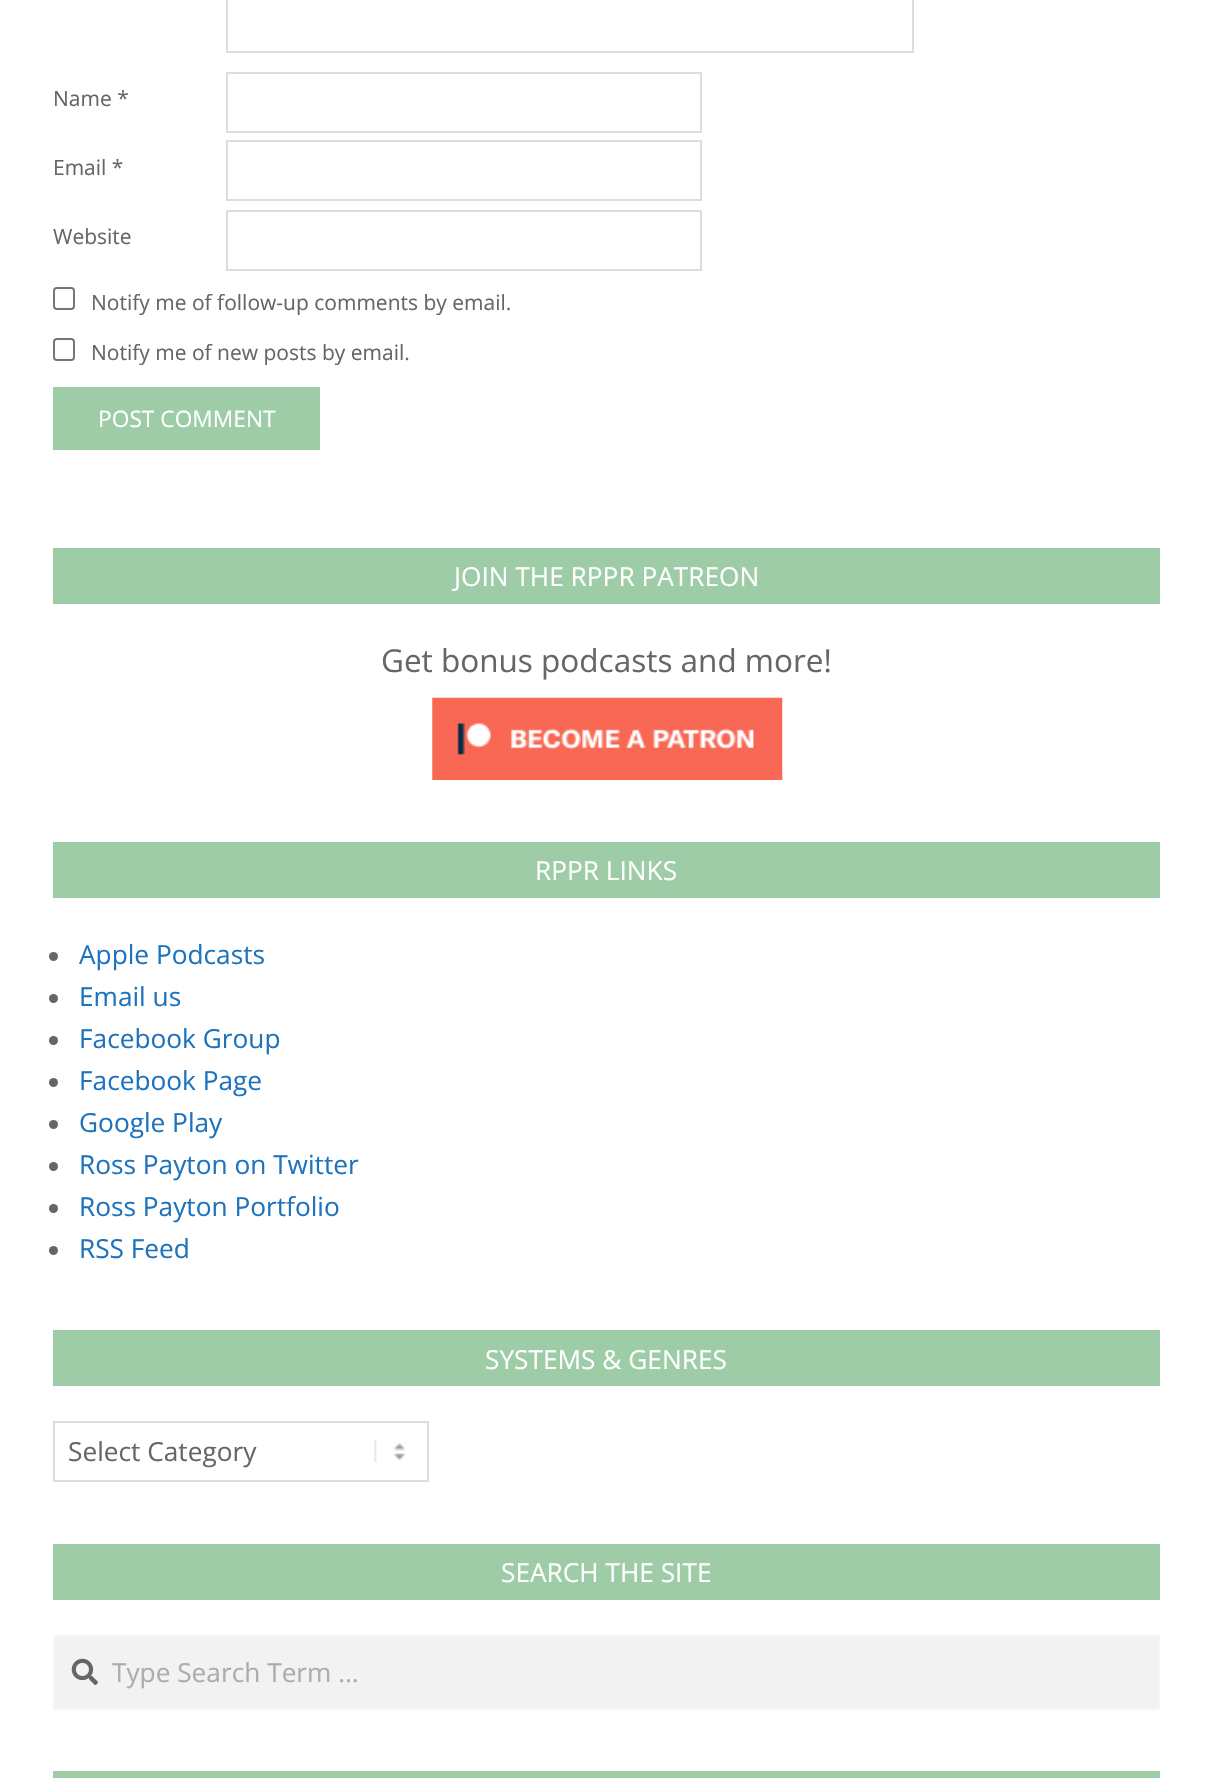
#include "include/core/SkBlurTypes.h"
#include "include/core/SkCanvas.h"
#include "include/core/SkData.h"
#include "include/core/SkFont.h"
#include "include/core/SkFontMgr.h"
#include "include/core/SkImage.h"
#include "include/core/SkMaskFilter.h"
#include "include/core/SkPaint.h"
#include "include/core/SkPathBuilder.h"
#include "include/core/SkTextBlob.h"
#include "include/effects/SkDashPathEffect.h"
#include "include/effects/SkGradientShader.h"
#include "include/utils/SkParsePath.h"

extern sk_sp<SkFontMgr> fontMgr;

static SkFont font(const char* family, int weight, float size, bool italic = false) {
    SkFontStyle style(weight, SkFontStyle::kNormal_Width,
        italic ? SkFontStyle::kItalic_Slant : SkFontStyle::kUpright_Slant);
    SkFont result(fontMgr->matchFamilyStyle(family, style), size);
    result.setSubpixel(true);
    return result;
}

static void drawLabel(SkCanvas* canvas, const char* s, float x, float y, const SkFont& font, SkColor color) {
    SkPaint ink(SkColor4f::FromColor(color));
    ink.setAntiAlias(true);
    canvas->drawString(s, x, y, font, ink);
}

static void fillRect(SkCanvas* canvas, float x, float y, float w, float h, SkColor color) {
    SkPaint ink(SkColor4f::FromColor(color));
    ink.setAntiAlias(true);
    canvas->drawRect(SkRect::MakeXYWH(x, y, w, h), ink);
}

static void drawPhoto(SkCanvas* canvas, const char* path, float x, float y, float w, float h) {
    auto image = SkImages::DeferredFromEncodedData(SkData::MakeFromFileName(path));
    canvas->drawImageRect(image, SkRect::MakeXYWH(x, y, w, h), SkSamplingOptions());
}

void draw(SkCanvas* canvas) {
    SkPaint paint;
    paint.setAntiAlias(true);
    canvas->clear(0xFFFFFFFF);
    paint.setStroke(true);
    paint.setStrokeWidth(2);
    paint.setColor(0xFFDDDDDD);
    canvas->drawRect(SkRect::MakeXYWH(227, -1, 686, 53), paint);
    SkFont font1 = font("Open Sans", 400, 21);
    drawLabel(canvas, "Name *", 53, 106, font1, 0xFF666666);
    canvas->drawRect(SkRect::MakeXYWH(227, 73, 474, 59), paint);
    drawLabel(canvas, "Email *", 53, 175, font1, 0xFF666666);
    canvas->drawRect(SkRect::MakeXYWH(227, 141, 474, 59), paint);
    drawLabel(canvas, "Website", 53, 244, font1, 0xFF666666);
    canvas->drawRect(SkRect::MakeXYWH(227, 211, 474, 59), paint);
    paint.setColor(0xFF767676);
    canvas->drawRoundRect(SkRect::MakeXYWH(54, 288, 20, 21), 3, 3, paint);
    drawLabel(canvas, "Notify me of follow-up comments by email.", 91, 310, font1, 0xFF666666);
    canvas->drawRoundRect(SkRect::MakeXYWH(54, 339, 20, 21), 3, 3, paint);
    drawLabel(canvas, "Notify me of new posts by email.", 91, 360, font1, 0xFF666666);
    fillRect(canvas, 53, 387, 267, 63, 0xFF9DCCA7);
    SkFont font2 = font("Open Sans", 400, 22.75f);
    drawLabel(canvas, "POST COMMENT", 98, 427, font2, 0xFFFFFFFF);
    fillRect(canvas, 53, 548, 1107, 56, 0xFF9DCCA7);
    SkFont font3 = font("Open Sans", 400, 26.25f);
    drawLabel(canvas, "JOIN THE RPPR PATREON", 454, 586, font3, 0xFFFFFFFF);
    SkFont font4 = font("Open Sans", 400, 31.5f);
    drawLabel(canvas, "Get bonus podcasts and more!", 381, 672, font4, 0xFF666666);
    drawPhoto(canvas, "assets/img1.png", 432, 697, 351, 83);
    fillRect(canvas, 53, 842, 1107, 56, 0xFF9DCCA7);
    drawLabel(canvas, "RPPR LINKS", 535, 880, font3, 0xFFFFFFFF);
    paint.setStroke(false);
    paint.setColor(0xFF666666);
    canvas->drawCircle(53.5f, 956.5f, 4.5f, paint);
    drawLabel(canvas, "Apple Podcasts", 79, 964, font3, 0xFF1E73BE);
    canvas->drawCircle(53.5f, 998.5f, 4.5f, paint);
    drawLabel(canvas, "Email us", 79, 1006, font3, 0xFF1E73BE);
    canvas->drawCircle(53.5f, 1040.5f, 4.5f, paint);
    drawLabel(canvas, "Facebook Group", 79, 1048, font3, 0xFF1E73BE);
    canvas->drawCircle(53.5f, 1082.5f, 4.5f, paint);
    drawLabel(canvas, "Facebook Page", 79, 1090, font3, 0xFF1E73BE);
    canvas->drawCircle(53.5f, 1124.5f, 4.5f, paint);
    drawLabel(canvas, "Google Play", 79, 1132, font3, 0xFF1E73BE);
    canvas->drawCircle(53.5f, 1166.5f, 4.5f, paint);
    drawLabel(canvas, "Ross Payton on Twitter", 79, 1174, font3, 0xFF1E73BE);
    canvas->drawCircle(53.5f, 1208.5f, 4.5f, paint);
    drawLabel(canvas, "Ross Payton Portfolio", 79, 1216, font3, 0xFF1E73BE);
    canvas->drawCircle(53.5f, 1250.5f, 4.5f, paint);
    drawLabel(canvas, "RSS Feed", 79, 1258, font3, 0xFF1E73BE);
    fillRect(canvas, 53, 1330, 1107, 56, 0xFF9DCCA7);
    drawLabel(canvas, "SYSTEMS & GENRES", 485, 1369, font3, 0xFFFFFFFF);
    drawPhoto(canvas, "assets/img2.png", 374, 1439, 32, 24);
    paint.setStroke(true);
    paint.setColor(0xFFDDDDDD);
    canvas->drawRect(SkRect::MakeXYWH(54, 1422, 374, 59), paint);
    drawLabel(canvas, "Select Category", 68, 1461, font3, 0xFF666666);
    fillRect(canvas, 53, 1544, 1107, 56, 0xFF9DCCA7);
    drawLabel(canvas, "SEARCH THE SITE", 501, 1582, font3, 0xFFFFFFFF);
    paint.setStroke(false);
    paint.setColor(0xFFF2F2F2);
    canvas->drawRect(SkRect::MakeXYWH(54, 1636, 1105, 73), paint);
    paint.setStroke(true);
    paint.setColor(0xFFF6F6F6);
    canvas->drawRect(SkRect::MakeXYWH(54, 1636, 1105, 73), paint);
    drawPhoto(canvas, "assets/img3.png", 71, 1658, 27, 27);
    drawLabel(canvas, "Type Search Term …", 112, 1682, font3, 0xFFACACAC);
    fillRect(canvas, 53, 1771, 1107, 7, 0xFF9DCCA7);
}
